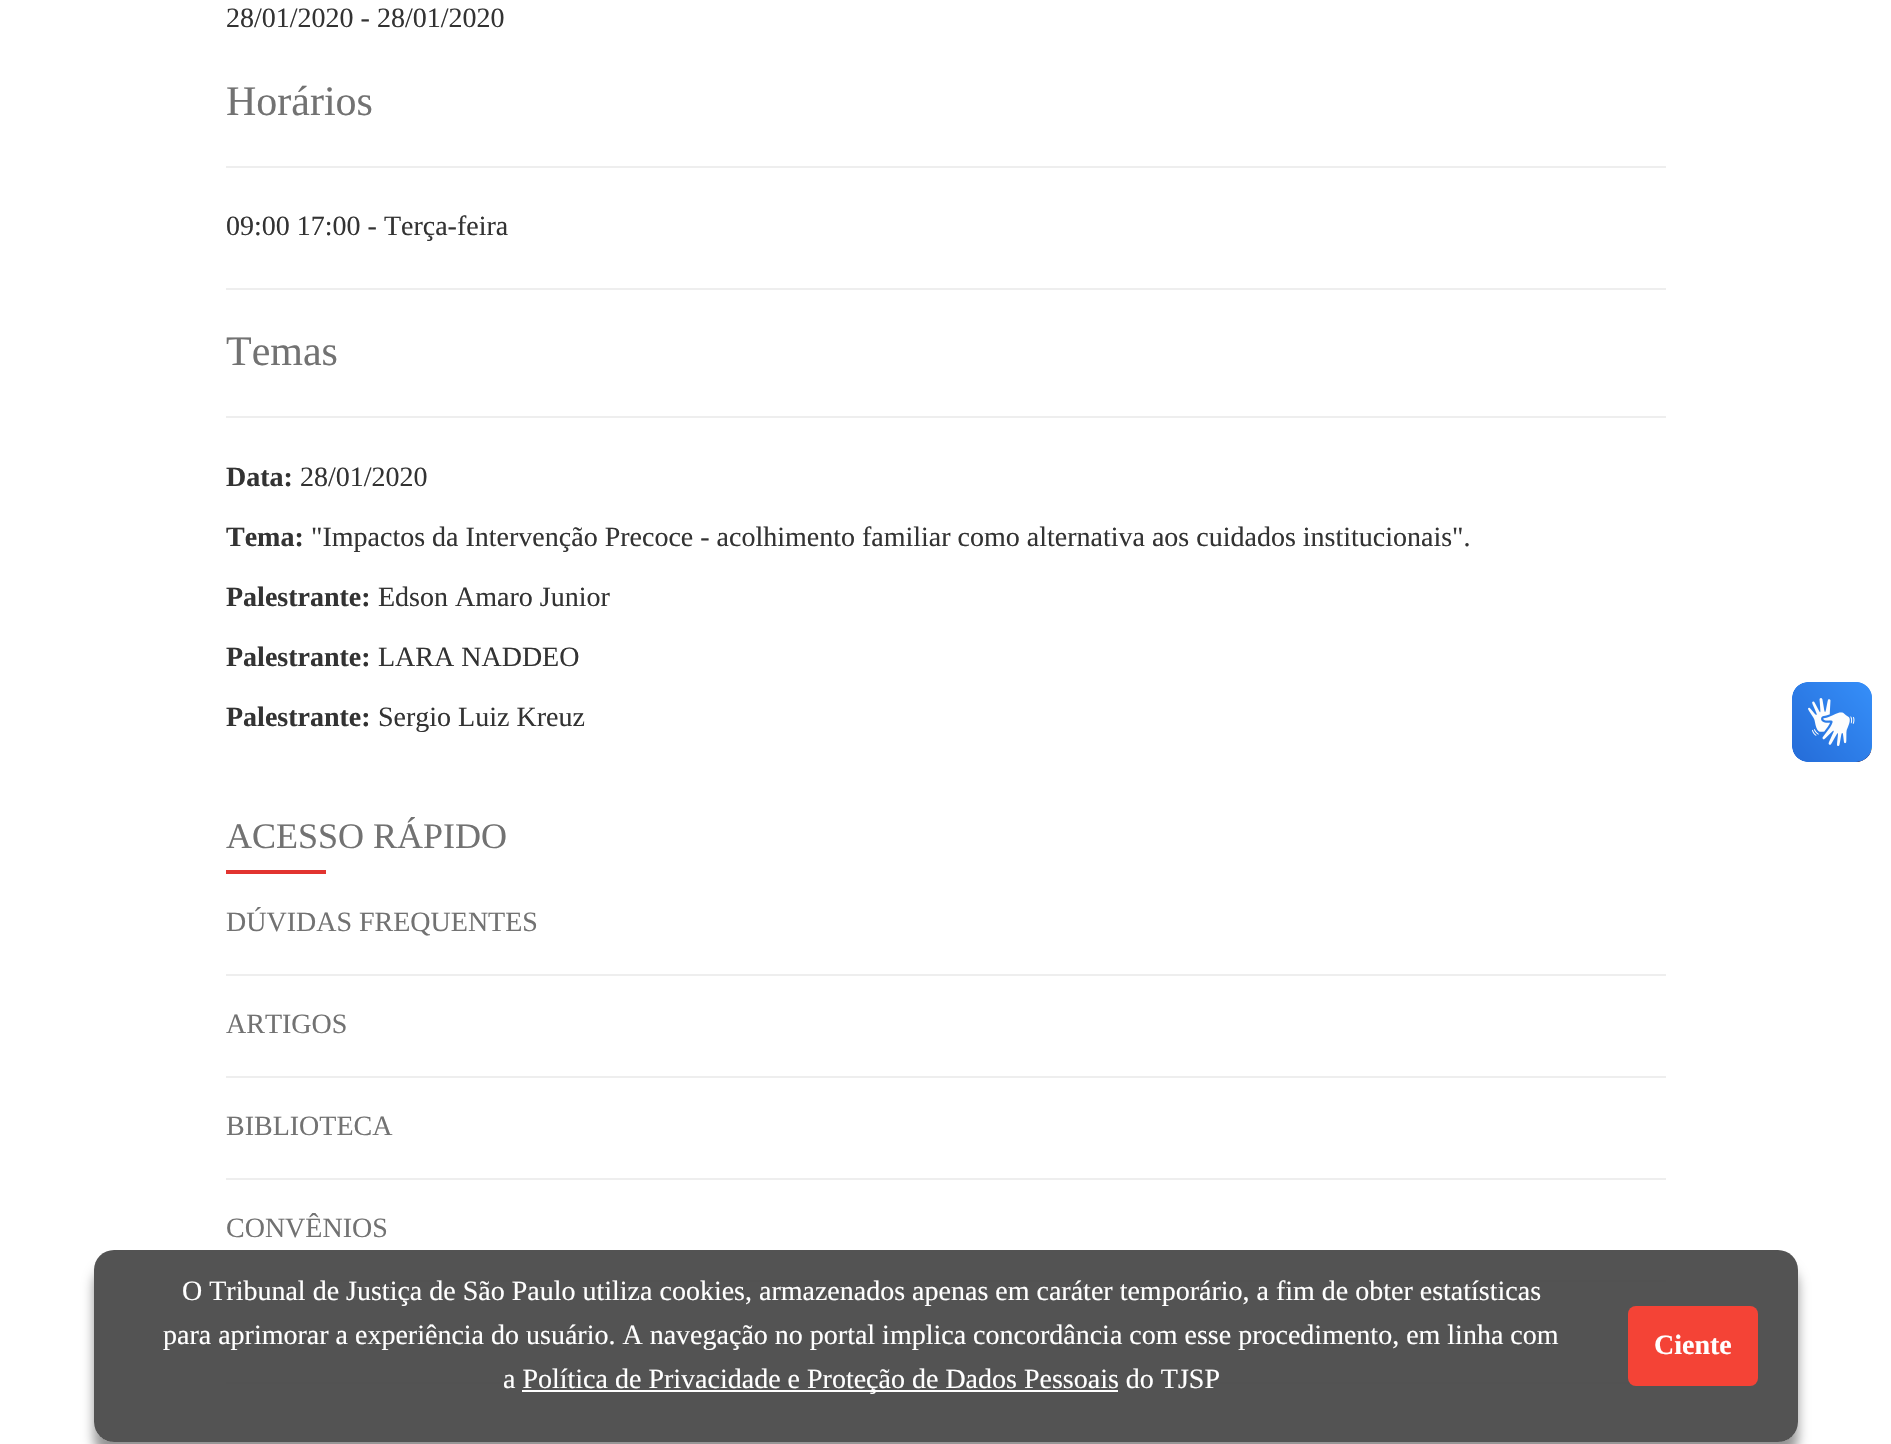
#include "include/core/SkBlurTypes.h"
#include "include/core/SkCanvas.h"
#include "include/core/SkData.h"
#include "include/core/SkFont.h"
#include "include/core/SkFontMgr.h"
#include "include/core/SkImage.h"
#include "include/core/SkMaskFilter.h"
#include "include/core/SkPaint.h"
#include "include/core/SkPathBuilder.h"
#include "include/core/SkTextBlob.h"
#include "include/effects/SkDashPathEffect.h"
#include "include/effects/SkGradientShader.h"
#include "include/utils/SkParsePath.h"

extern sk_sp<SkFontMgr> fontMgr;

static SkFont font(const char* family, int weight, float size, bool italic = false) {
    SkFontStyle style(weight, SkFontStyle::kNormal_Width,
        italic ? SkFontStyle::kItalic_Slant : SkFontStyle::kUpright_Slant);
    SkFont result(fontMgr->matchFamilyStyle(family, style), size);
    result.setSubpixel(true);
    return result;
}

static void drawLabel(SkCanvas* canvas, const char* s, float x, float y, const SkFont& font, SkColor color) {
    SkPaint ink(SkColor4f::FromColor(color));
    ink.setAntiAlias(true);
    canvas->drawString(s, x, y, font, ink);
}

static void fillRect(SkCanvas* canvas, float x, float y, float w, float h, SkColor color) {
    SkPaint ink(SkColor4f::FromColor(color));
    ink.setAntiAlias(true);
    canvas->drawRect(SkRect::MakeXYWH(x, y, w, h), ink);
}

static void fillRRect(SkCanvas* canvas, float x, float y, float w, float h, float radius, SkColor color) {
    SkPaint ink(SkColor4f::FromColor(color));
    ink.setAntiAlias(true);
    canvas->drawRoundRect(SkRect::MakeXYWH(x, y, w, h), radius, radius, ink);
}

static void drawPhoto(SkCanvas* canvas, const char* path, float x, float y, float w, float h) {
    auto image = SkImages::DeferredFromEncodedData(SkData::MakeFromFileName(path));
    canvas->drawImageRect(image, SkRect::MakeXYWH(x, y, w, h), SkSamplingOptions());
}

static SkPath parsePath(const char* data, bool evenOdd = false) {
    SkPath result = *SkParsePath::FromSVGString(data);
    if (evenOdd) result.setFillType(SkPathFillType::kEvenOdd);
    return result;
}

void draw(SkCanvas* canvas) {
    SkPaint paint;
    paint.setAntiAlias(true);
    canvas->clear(0xFFFFFFFF);
    SkFont font1 = font("Liberation Serif", 400, 28);
    drawLabel(canvas, "28/01/2020 - 28/01/2020", 226, 27, font1, 0xFF333333);
    SkFont font2 = font("Liberation Serif", 400, 42);
    drawLabel(canvas, "Horários", 226, 115, font2, 0xFF727272);
    fillRect(canvas, 226, 166, 1440, 2, 0xFFEEEEEE);
    drawLabel(canvas, "09:00 17:00 - Terça-feira", 226, 235, font1, 0xFF333333);
    fillRect(canvas, 226, 288, 1440, 2, 0xFFEEEEEE);
    drawLabel(canvas, "Temas", 226, 365, font2, 0xFF727272);
    fillRect(canvas, 226, 416, 1440, 2, 0xFFEEEEEE);
    SkFont font3 = font("Liberation Serif", 700, 28);
    drawLabel(canvas, "Data:", 226, 486, font3, 0xFF333333);
    drawLabel(canvas, "28/01/2020", 300, 486, font1, 0xFF333333);
    drawLabel(canvas, "Tema:", 226, 546, font3, 0xFF333333);
    drawLabel(canvas, "\"Impactos da Intervenção Precoce - acolhimento familiar como alternativa aos cuidados institucionais\".", 311, 546, font1, 0xFF333333);
    drawLabel(canvas, "Palestrante:", 226, 606, font3, 0xFF333333);
    drawLabel(canvas, "Edson Amaro Junior", 378, 606, font1, 0xFF333333);
    drawLabel(canvas, "Palestrante:", 226, 666, font3, 0xFF333333);
    drawLabel(canvas, "LARA NADDEO", 378, 666, font1, 0xFF333333);
    drawLabel(canvas, "Palestrante:", 226, 726, font3, 0xFF333333);
    drawLabel(canvas, "Sergio Luiz Kreuz", 378, 726, font1, 0xFF333333);
    SkFont font4 = font("Liberation Serif", 400, 36);
    drawLabel(canvas, "ACESSO RÁPIDO", 226, 848, font4, 0xFF727272);
    fillRect(canvas, 226, 870, 100, 4, 0xFFE23430);
    fillRect(canvas, 226, 974, 1440, 2, 0xFFEEEEEE);
    drawLabel(canvas, "DÚVIDAS FREQUENTES", 226, 931, font1, 0xFF727272);
    fillRect(canvas, 226, 1076, 1440, 2, 0xFFEEEEEE);
    drawLabel(canvas, "ARTIGOS", 226, 1033, font1, 0xFF727272);
    fillRect(canvas, 226, 1178, 1440, 2, 0xFFEEEEEE);
    drawLabel(canvas, "BIBLIOTECA", 226, 1135, font1, 0xFF727272);
    fillRect(canvas, 226, 1280, 1440, 2, 0xFFEEEEEE);
    drawLabel(canvas, "CONVÊNIOS", 226, 1237, font1, 0xFF727272);
    fillRect(canvas, 226, 1382, 1405, 2, 0xFFEEEEEE);
    drawPhoto(canvas, "assets/img1.png", 1792, 682, 80, 80);
    drawPhoto(canvas, "assets/img2.png", 1792, 682, 80, 80);
    canvas->save();
    canvas->clipPath(parsePath("M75 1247H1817V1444H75ZM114 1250H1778C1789 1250 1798 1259 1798 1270V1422C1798 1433 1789 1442 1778 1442H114C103 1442 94 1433 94 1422V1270C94 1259 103 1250 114 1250Z", true), true);
    paint.setColor(0x69000000);
    paint.setMaskFilter(SkMaskFilter::MakeBlur(kNormal_SkBlurStyle, 6));
    canvas->drawRoundRect(SkRect::MakeXYWH(94, 1266, 1704, 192), 20, 20, paint);
    paint.setMaskFilter(nullptr);
    canvas->restore();
    fillRRect(canvas, 94, 1250, 1704, 192, 20, 0xE6404040);
    drawLabel(canvas, "O Tribunal de Justiça de São Paulo utiliza cookies, armazenados apenas em caráter temporário, a fim de obter estatísticas", 182, 1300, font1, 0xFFFFFFFF);
    drawLabel(canvas, "para aprimorar a experiência do usuário. A navegação no portal implica concordância com esse procedimento, em linha com", 163, 1344, font1, 0xFFFFFFFF);
    drawLabel(canvas, "a Política de Privacidade e", 503, 1388, font1, 0xFFFFFFFF);
    fillRect(canvas, 522, 1390, 596, 2, 0xFFFFFFFF);
    drawLabel(canvas, "Proteção de Dados Pessoais do TJSP", 807, 1388, font1, 0xFFFFFFFF);
    fillRRect(canvas, 1628, 1306, 130, 80, 8, 0xFFF44336);
    drawLabel(canvas, "Ciente", 1654, 1354, font3, 0xFFFFFFFF);
}
